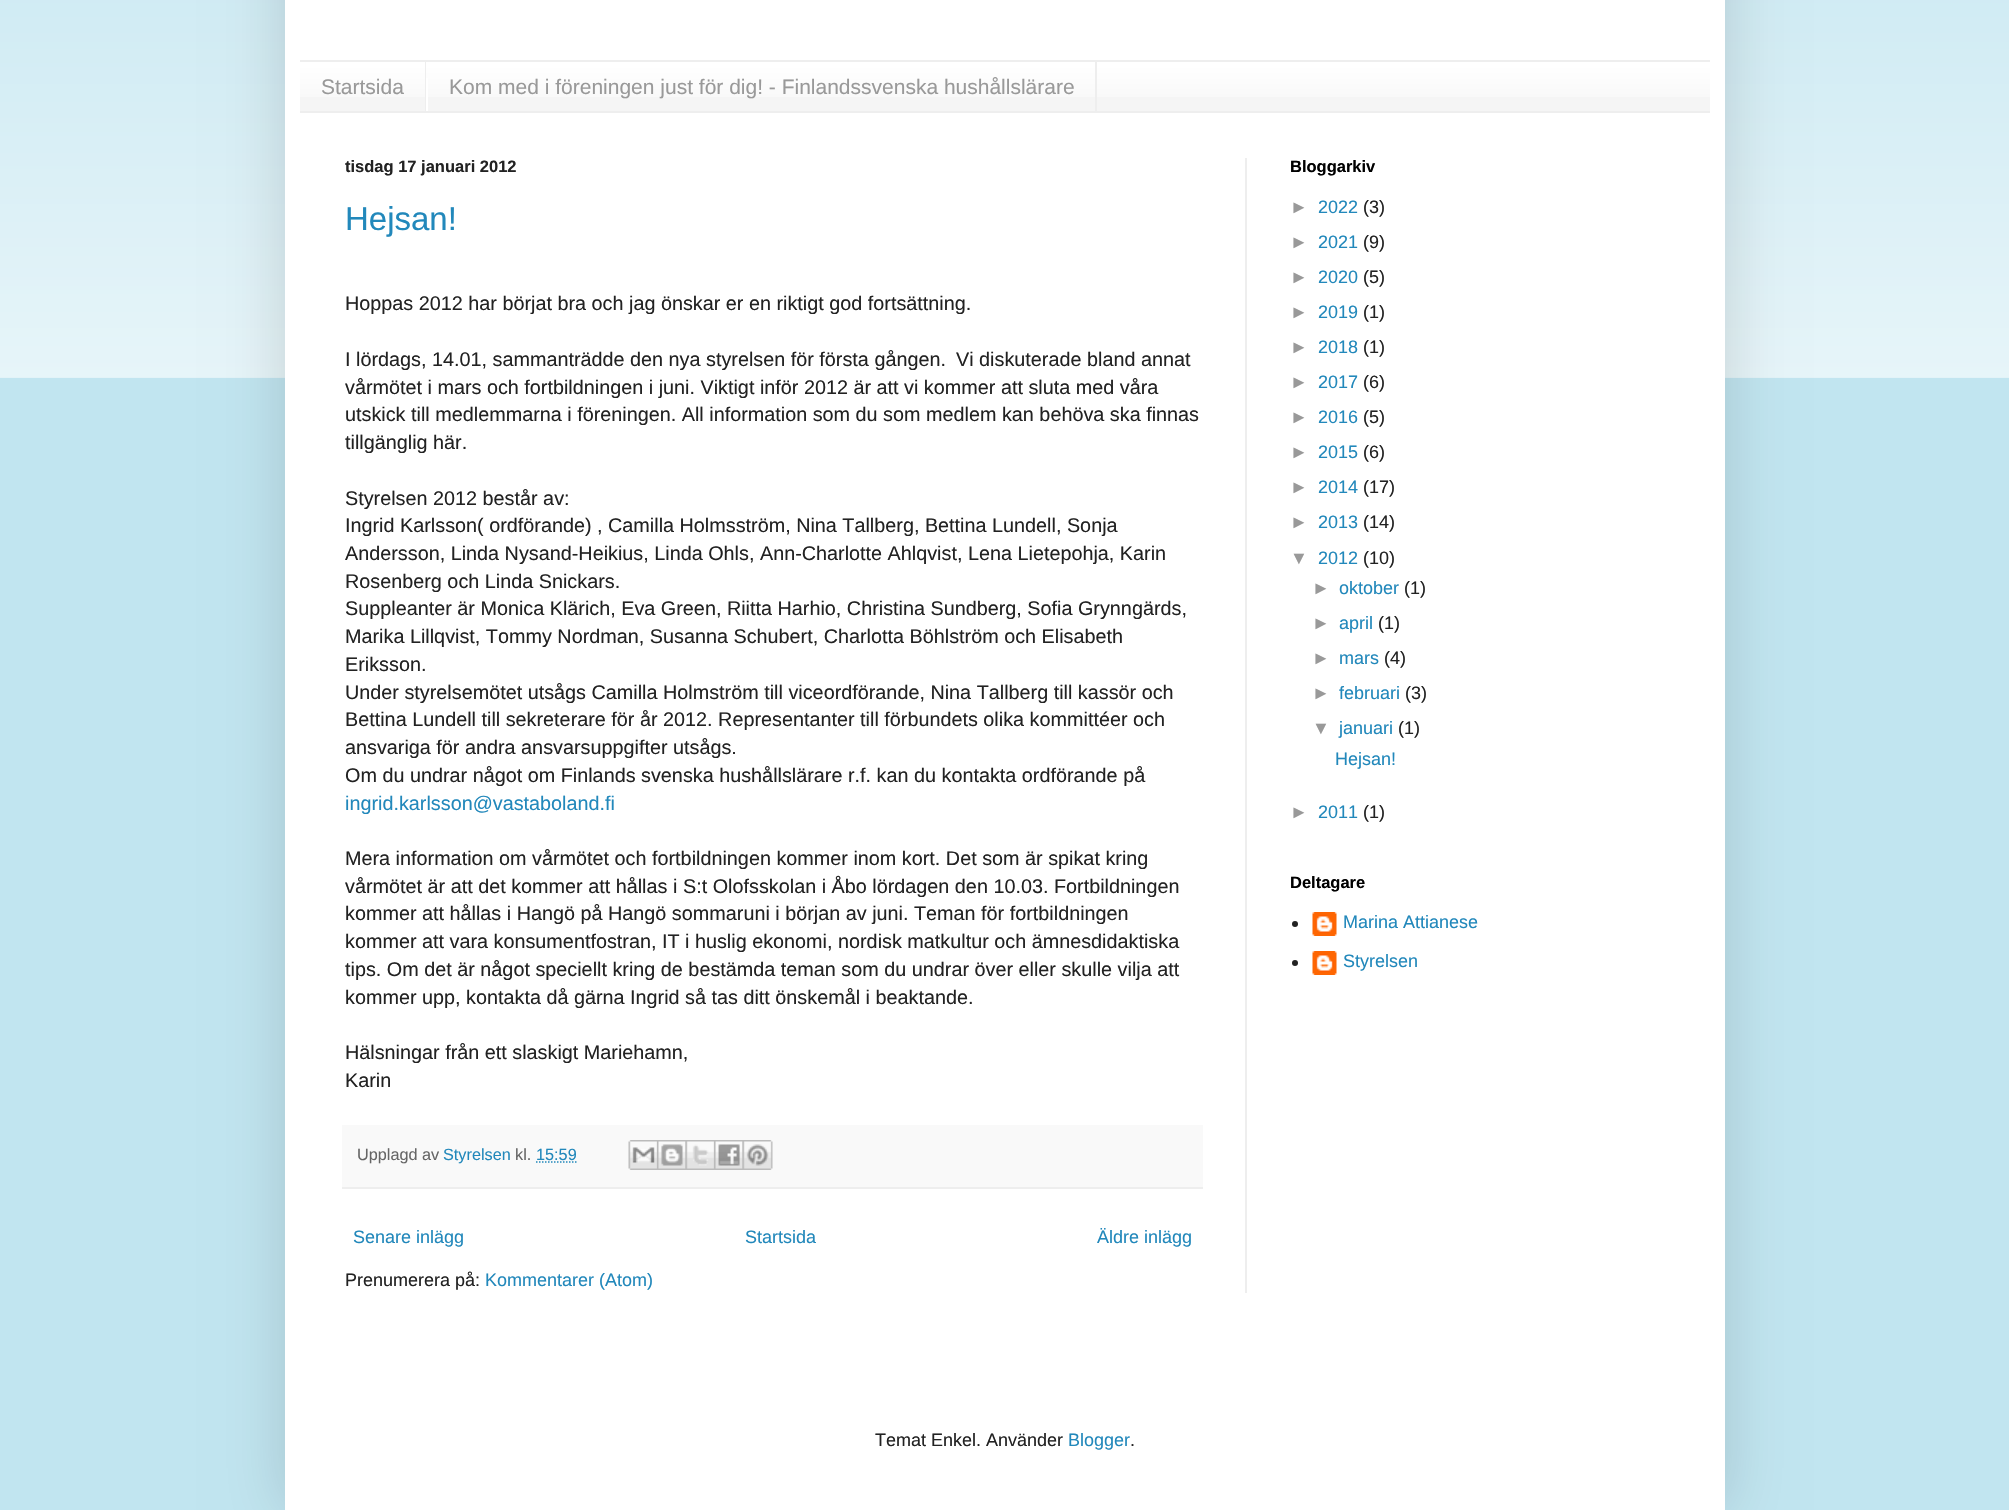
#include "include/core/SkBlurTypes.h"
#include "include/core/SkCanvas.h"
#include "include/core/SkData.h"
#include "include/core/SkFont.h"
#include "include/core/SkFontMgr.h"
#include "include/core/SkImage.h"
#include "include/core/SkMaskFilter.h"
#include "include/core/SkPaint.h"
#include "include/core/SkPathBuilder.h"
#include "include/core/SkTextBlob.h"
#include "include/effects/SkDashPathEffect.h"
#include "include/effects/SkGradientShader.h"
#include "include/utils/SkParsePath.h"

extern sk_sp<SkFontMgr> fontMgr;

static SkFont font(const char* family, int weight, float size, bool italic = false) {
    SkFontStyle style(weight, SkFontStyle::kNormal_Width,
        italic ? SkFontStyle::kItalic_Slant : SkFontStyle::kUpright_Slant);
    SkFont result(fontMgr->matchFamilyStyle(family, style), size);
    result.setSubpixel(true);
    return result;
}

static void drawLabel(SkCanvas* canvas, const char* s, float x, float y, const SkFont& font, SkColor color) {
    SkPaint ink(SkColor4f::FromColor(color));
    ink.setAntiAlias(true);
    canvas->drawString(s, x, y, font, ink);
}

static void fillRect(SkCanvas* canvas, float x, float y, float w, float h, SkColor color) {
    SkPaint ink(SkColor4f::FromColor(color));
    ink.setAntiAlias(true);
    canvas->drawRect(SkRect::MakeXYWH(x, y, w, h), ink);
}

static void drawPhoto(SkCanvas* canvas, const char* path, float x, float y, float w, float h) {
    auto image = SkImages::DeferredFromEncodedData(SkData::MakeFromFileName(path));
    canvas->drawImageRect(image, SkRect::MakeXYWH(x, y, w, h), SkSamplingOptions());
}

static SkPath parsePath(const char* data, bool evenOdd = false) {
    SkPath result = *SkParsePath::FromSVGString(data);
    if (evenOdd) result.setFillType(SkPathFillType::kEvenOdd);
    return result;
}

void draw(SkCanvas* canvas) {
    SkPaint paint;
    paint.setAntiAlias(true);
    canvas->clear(0xFFC1E5F0);
    drawPhoto(canvas, "assets/img1.png", 0, 0, 2009, 378);
    paint.setColor(0x26000000);
    paint.setMaskFilter(SkMaskFilter::MakeBlur(kNormal_SkBlurStyle, 30));
    canvas->drawRect(SkRect::MakeXYWH(285, -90, 1440, 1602), paint);
    paint.setMaskFilter(nullptr);
    fillRect(canvas, 285, 0, 1440, 1510, 0xFFFFFFFF);
    fillRect(canvas, 300, 63, 1410, 48, 0xFFF5F5F5);
    drawPhoto(canvas, "assets/img2.png", 300, 62, 1410, 35);
    fillRect(canvas, 300, 60, 1410, 2, 0xFFEEEEEE);
    fillRect(canvas, 300, 111, 1410, 2, 0xFFEEEEEE);
    fillRect(canvas, 425, 62, 1, 49, 0xFFEEEEEE);
    SkFont font1 = font("Liberation Sans", 400, 21);
    drawLabel(canvas, "Startsida", 321, 94, font1, 0xFF999999);
    fillRect(canvas, 1095, 62, 2, 49, 0xFFEEEEEE);
    fillRect(canvas, 426, 78, 2, 33, 0xFFFFFFFF);
    drawLabel(canvas, "Kom med i föreningen just för dig! - Finlandssvenska hushållslärare", 449, 94, font1, 0xFF999999);
    fillRect(canvas, 1245, 158, 2, 1135, 0xFFEEEEEE);
    SkFont font2 = font("Liberation Sans", 700, 16.5f);
    drawLabel(canvas, "tisdag 17 januari 2012", 345, 172, font2, 0xFF222222);
    SkFont font3 = font("Liberation Sans", 400, 33);
    drawLabel(canvas, "Hejsan!", 345, 230, font3, 0xFF2288BB);
    SkFont font4 = font("Liberation Sans", 400, 19.8f);
    drawLabel(canvas, "Hoppas 2012 har börjat bra och jag önskar er en riktigt god fortsättning.", 345, 310, font4, 0xFF222222);
    drawLabel(canvas, "I lördags, 14.01, sammanträdde den nya styrelsen för första gången.", 345, 366, font4, 0xFF222222);
    drawLabel(canvas, "Vi diskuterade bland annat", 956, 366, font4, 0xFF222222);
    drawLabel(canvas, "vårmötet i mars och fortbildningen i juni. Viktigt inför 2012 är att vi kommer att sluta med våra", 345, 394, font4, 0xFF222222);
    drawLabel(canvas, "utskick till medlemmarna i föreningen. All information som du som medlem kan behöva ska finnas", 345, 421, font4, 0xFF222222);
    drawLabel(canvas, "tillgänglig här.", 345, 449, font4, 0xFF222222);
    drawLabel(canvas, "Styrelsen 2012 består av:", 345, 505, font4, 0xFF222222);
    drawLabel(canvas, "Ingrid Karlsson( ordförande) , Camilla Holmsström, Nina Tallberg, Bettina Lundell, Sonja", 345, 532, font4, 0xFF222222);
    drawLabel(canvas, "Andersson, Linda Nysand-Heikius, Linda Ohls, Ann-Charlotte Ahlqvist, Lena Lietepohja, Karin", 345, 560, font4, 0xFF222222);
    drawLabel(canvas, "Rosenberg och Linda Snickars.", 345, 588, font4, 0xFF222222);
    drawLabel(canvas, "Suppleanter är Monica Klärich, Eva Green, Riitta Harhio, Christina Sundberg, Sofia Grynngärds,", 345, 615, font4, 0xFF222222);
    drawLabel(canvas, "Marika Lillqvist, Tommy Nordman, Susanna Schubert, Charlotta Böhlström och Elisabeth", 345, 643, font4, 0xFF222222);
    drawLabel(canvas, "Eriksson.", 345, 671, font4, 0xFF222222);
    drawLabel(canvas, "Under styrelsemötet utsågs Camilla Holmström till viceordförande, Nina Tallberg till kassör och", 345, 699, font4, 0xFF222222);
    drawLabel(canvas, "Bettina Lundell till sekreterare för år 2012. Representanter till förbundets olika kommittéer och", 345, 726, font4, 0xFF222222);
    drawLabel(canvas, "ansvariga för andra ansvarsuppgifter utsågs.", 345, 754, font4, 0xFF222222);
    drawLabel(canvas, "Om du undrar något om Finlands svenska hushållslärare r.f. kan du kontakta ordförande på", 345, 782, font4, 0xFF222222);
    drawLabel(canvas, "ingrid.karlsson@vastaboland.fi", 345, 810, font4, 0xFF2288BB);
    drawLabel(canvas, "Mera information om vårmötet och fortbildningen kommer inom kort. Det som är spikat kring", 345, 865, font4, 0xFF222222);
    drawLabel(canvas, "vårmötet är att det kommer att hållas i", 345, 893, font4, 0xFF222222);
    drawLabel(canvas, "S:t Olofsskolan i Åbo lördagen den 10.03. Fortbildningen", 683, 893, font4, 0xFF222222);
    drawLabel(canvas, "kommer att hållas i Hangö på Hangö sommaruni i början av juni. Teman för fortbildningen", 345, 920, font4, 0xFF222222);
    drawLabel(canvas, "kommer att vara konsumentfostran, IT i huslig ekonomi, nordisk matkultur och ämnesdidaktiska", 345, 948, font4, 0xFF222222);
    drawLabel(canvas, "tips. Om det är något speciellt kring de bestämda teman som du undrar över eller skulle vilja att", 345, 976, font4, 0xFF222222);
    drawLabel(canvas, "kommer upp, kontakta då gärna Ingrid så tas ditt önskemål i beaktande.", 345, 1004, font4, 0xFF222222);
    drawLabel(canvas, "Hälsningar från ett slaskigt Mariehamn,", 345, 1059, font4, 0xFF222222);
    drawLabel(canvas, "Karin", 345, 1087, font4, 0xFF222222);
    fillRect(canvas, 342, 1125, 861, 62, 0xFFF9F9F9);
    fillRect(canvas, 342, 1187, 861, 2, 0xFFEEEEEE);
    SkFont font5 = font("Liberation Sans", 400, 16.25f);
    drawLabel(canvas, "Upplagd av", 357, 1160, font5, 0xFF666666);
    drawLabel(canvas, "Styrelsen", 443, 1160, font5, 0xFF2288BB);
    drawLabel(canvas, "kl.", 515, 1160, font5, 0xFF666666);
    drawLabel(canvas, "15:59", 536, 1160, font5, 0xFF2288BB);
    paint.setStroke(true);
    paint.setStrokeWidth(1.5f);
    paint.setColor(0xFF2288BB);
    paint.setPathEffect(SkDashPathEffect::Make({{1.5f, 1.5f}}, 0));
    canvas->drawPath(parsePath("M536 1162H576.5"), paint);
    paint.setPathEffect(nullptr);
    drawPhoto(canvas, "assets/img3.png", 628, 1140, 29, 30);
    drawPhoto(canvas, "assets/img4.png", 657, 1140, 29, 30);
    drawPhoto(canvas, "assets/img5.png", 685, 1140, 29, 30);
    drawPhoto(canvas, "assets/img6.png", 714, 1140, 29, 30);
    drawPhoto(canvas, "assets/img7.png", 742, 1140, 31, 30);
    SkFont font6 = font("Liberation Sans", 400, 18);
    drawLabel(canvas, "Senare inlägg", 353, 1243, font6, 0xFF2288BB);
    drawLabel(canvas, "Startsida", 745, 1243, font6, 0xFF2288BB);
    drawLabel(canvas, "Äldre inlägg", 1097, 1243, font6, 0xFF2288BB);
    drawLabel(canvas, "Prenumerera på:", 345, 1286, font6, 0xFF222222);
    drawLabel(canvas, "Kommentarer (Atom)", 485, 1286, font6, 0xFF2288BB);
    drawLabel(canvas, "Bloggarkiv", 1290, 172, font2, 0xFF000000);
    drawLabel(canvas, "►", 1290, 213, font6, 0xFF999999);
    drawLabel(canvas, "2022", 1318, 213, font6, 0xFF2288BB);
    drawLabel(canvas, "(3)", 1363, 213, font6, 0xFF222222);
    drawLabel(canvas, "►", 1290, 248, font6, 0xFF999999);
    drawLabel(canvas, "2021", 1318, 248, font6, 0xFF2288BB);
    drawLabel(canvas, "(9)", 1363, 248, font6, 0xFF222222);
    drawLabel(canvas, "►", 1290, 283, font6, 0xFF999999);
    drawLabel(canvas, "2020", 1318, 283, font6, 0xFF2288BB);
    drawLabel(canvas, "(5)", 1363, 283, font6, 0xFF222222);
    drawLabel(canvas, "►", 1290, 318, font6, 0xFF999999);
    drawLabel(canvas, "2019", 1318, 318, font6, 0xFF2288BB);
    drawLabel(canvas, "(1)", 1363, 318, font6, 0xFF222222);
    drawLabel(canvas, "►", 1290, 353, font6, 0xFF999999);
    drawLabel(canvas, "2018", 1318, 353, font6, 0xFF2288BB);
    drawLabel(canvas, "(1)", 1363, 353, font6, 0xFF222222);
    drawLabel(canvas, "►", 1290, 388, font6, 0xFF999999);
    drawLabel(canvas, "2017", 1318, 388, font6, 0xFF2288BB);
    drawLabel(canvas, "(6)", 1363, 388, font6, 0xFF222222);
    drawLabel(canvas, "►", 1290, 423, font6, 0xFF999999);
    drawLabel(canvas, "2016", 1318, 423, font6, 0xFF2288BB);
    drawLabel(canvas, "(5)", 1363, 423, font6, 0xFF222222);
    drawLabel(canvas, "►", 1290, 458, font6, 0xFF999999);
    drawLabel(canvas, "2015", 1318, 458, font6, 0xFF2288BB);
    drawLabel(canvas, "(6)", 1363, 458, font6, 0xFF222222);
    drawLabel(canvas, "►", 1290, 493, font6, 0xFF999999);
    drawLabel(canvas, "2014", 1318, 493, font6, 0xFF2288BB);
    drawLabel(canvas, "(17)", 1363, 493, font6, 0xFF222222);
    drawLabel(canvas, "►", 1290, 528, font6, 0xFF999999);
    drawLabel(canvas, "2013", 1318, 528, font6, 0xFF2288BB);
    drawLabel(canvas, "(14)", 1363, 528, font6, 0xFF222222);
    drawLabel(canvas, "▼", 1290, 564, font6, 0xFF999999);
    drawLabel(canvas, "2012", 1318, 564, font6, 0xFF2288BB);
    drawLabel(canvas, "(10)", 1363, 564, font6, 0xFF222222);
    drawLabel(canvas, "►", 1312, 594, font6, 0xFF999999);
    drawLabel(canvas, "oktober", 1339, 594, font6, 0xFF2288BB);
    drawLabel(canvas, "(1)", 1404, 594, font6, 0xFF222222);
    drawLabel(canvas, "►", 1312, 629, font6, 0xFF999999);
    drawLabel(canvas, "april", 1339, 629, font6, 0xFF2288BB);
    drawLabel(canvas, "(1)", 1378, 629, font6, 0xFF222222);
    drawLabel(canvas, "►", 1312, 664, font6, 0xFF999999);
    drawLabel(canvas, "mars", 1339, 664, font6, 0xFF2288BB);
    drawLabel(canvas, "(4)", 1384, 664, font6, 0xFF222222);
    drawLabel(canvas, "►", 1312, 699, font6, 0xFF999999);
    drawLabel(canvas, "februari", 1339, 699, font6, 0xFF2288BB);
    drawLabel(canvas, "(3)", 1405, 699, font6, 0xFF222222);
    drawLabel(canvas, "▼", 1312, 734, font6, 0xFF999999);
    drawLabel(canvas, "januari", 1339, 734, font6, 0xFF2288BB);
    drawLabel(canvas, "(1)", 1398, 734, font6, 0xFF222222);
    drawLabel(canvas, "Hejsan!", 1335, 765, font6, 0xFF2288BB);
    drawLabel(canvas, "►", 1290, 818, font6, 0xFF999999);
    drawLabel(canvas, "2011", 1318, 818, font6, 0xFF2288BB);
    drawLabel(canvas, "(1)", 1363, 818, font6, 0xFF222222);
    drawLabel(canvas, "Deltagare", 1290, 888, font2, 0xFF000000);
    paint.setStroke(false);
    paint.setColor(0xFF222222);
    canvas->drawCircle(1295, 924, 3, paint);
    drawPhoto(canvas, "assets/img8.png", 1312, 912, 25, 24);
    drawLabel(canvas, "Marina Attianese", 1343, 928, font6, 0xFF2288BB);
    canvas->drawCircle(1295, 963, 3, paint);
    drawPhoto(canvas, "assets/img8.png", 1312, 951, 25, 24);
    drawLabel(canvas, "Styrelsen", 1343, 967, font6, 0xFF2288BB);
    drawLabel(canvas, "Temat Enkel. Använder", 875, 1446, font6, 0xFF222222);
    drawLabel(canvas, "Blogger", 1068, 1446, font6, 0xFF2288BB);
    drawLabel(canvas, ".", 1130, 1446, font6, 0xFF222222);
}
